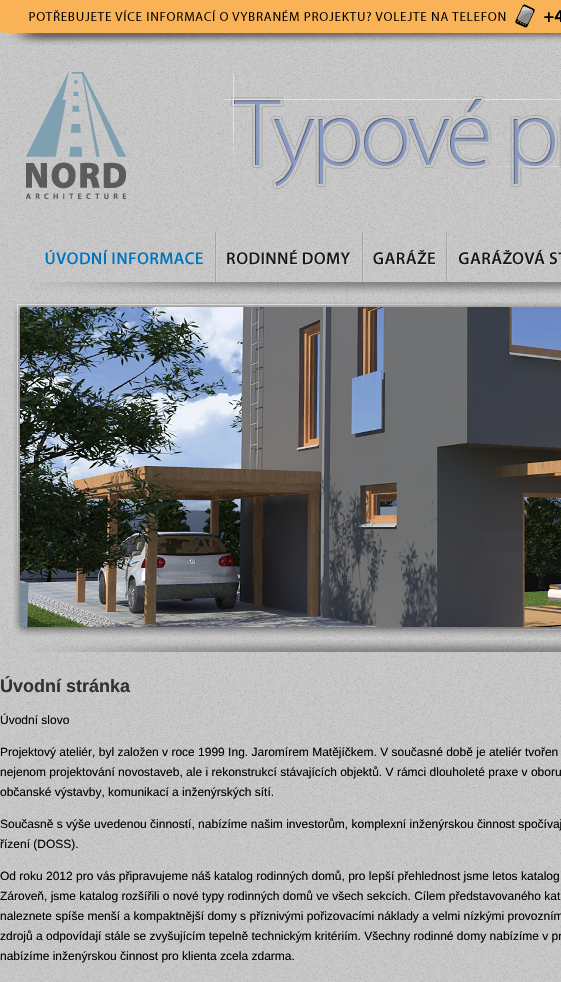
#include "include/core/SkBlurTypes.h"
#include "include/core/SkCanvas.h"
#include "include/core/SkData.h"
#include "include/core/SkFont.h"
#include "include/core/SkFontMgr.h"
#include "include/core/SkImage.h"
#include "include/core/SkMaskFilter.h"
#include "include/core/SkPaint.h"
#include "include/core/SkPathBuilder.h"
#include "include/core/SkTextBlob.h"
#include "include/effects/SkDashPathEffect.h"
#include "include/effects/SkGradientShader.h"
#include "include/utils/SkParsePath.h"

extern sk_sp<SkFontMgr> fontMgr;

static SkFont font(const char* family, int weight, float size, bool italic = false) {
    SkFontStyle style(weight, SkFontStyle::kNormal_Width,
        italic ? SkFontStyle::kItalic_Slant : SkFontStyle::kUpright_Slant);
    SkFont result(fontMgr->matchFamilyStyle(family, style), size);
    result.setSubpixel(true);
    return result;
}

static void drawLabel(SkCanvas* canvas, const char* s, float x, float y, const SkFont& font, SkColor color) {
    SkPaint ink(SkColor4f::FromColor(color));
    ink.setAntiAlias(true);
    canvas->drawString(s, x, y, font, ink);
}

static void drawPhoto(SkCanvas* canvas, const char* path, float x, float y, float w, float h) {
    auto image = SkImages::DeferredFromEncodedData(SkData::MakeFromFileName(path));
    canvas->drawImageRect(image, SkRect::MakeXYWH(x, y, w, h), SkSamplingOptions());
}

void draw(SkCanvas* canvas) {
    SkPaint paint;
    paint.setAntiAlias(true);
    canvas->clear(0xFFFFFFFF);
    drawPhoto(canvas, "assets/img1.png", 0, 29, 561, 953);
    drawPhoto(canvas, "assets/img2.png", 0, 0, 561, 45);
    drawPhoto(canvas, "assets/img3.png", 26, 72, 535, 127);
    drawPhoto(canvas, "assets/img4.png", 45, 232, 172, 50);
    drawPhoto(canvas, "assets/img5.png", 227, 232, 137, 50);
    drawPhoto(canvas, "assets/img6.png", 373, 232, 75, 50);
    drawPhoto(canvas, "assets/img7.png", 459, 250, 102, 16);
    drawPhoto(canvas, "assets/img8.png", 30, 282, 531, 12);
    drawPhoto(canvas, "assets/img9.png", 13, 302, 548, 335);
    drawPhoto(canvas, "assets/img10.png", 30, 640, 531, 12);
    SkFont font1 = font("Liberation Sans", 700, 18);
    drawLabel(canvas, "Úvodní stránka", 0, 692, font1, 0xFF313131);
    SkFont font2 = font("Liberation Sans", 400, 12);
    drawLabel(canvas, "Úvodní slovo", 0, 724, font2, 0xFF000000);
    drawLabel(canvas, "Projektový ateliér, byl založen v roce 1999 Ing. Jaromírem Matějíčkem. V současné době je ateliér tvořen", 0, 756, font2, 0xFF000000);
    drawLabel(canvas, "nejenom projektování novostaveb, ale i rekonstrukcí stávajících objektů. V rámci dlouholeté praxe v oboru", 0, 776, font2, 0xFF000000);
    drawLabel(canvas, "občanské výstavby, komunikací a inženýrských sítí.", 0, 796, font2, 0xFF000000);
    drawLabel(canvas, "Současně s výše uvedenou činností, nabízíme našim investorům, komplexní inženýrskou činnost spočívaj", 0, 828, font2, 0xFF000000);
    drawLabel(canvas, "řízení (DOSS).", 0, 848, font2, 0xFF000000);
    drawLabel(canvas, "Od roku 2012 pro vás připravujeme náš katalog rodinných domů, pro lepší přehlednost jsme letos katalog", 0, 880, font2, 0xFF000000);
    drawLabel(canvas, "Zároveň, jsme katalog rozšířili o nové typy rodinných domů ve všech sekcích. Cílem představovaného kat", 0, 900, font2, 0xFF000000);
    drawLabel(canvas, "naleznete spíše menší a kompaktnější domy s příznivými pořizovacími náklady a velmi nízkými provozním", 0, 920, font2, 0xFF000000);
    drawLabel(canvas, "zdrojů a odpovídají stále se zvyšujícím tepelně technickým kritériím. Všechny rodinné domy nabízíme v pr", 0, 940, font2, 0xFF000000);
    drawLabel(canvas, "nabízíme inženýrskou činnost pro klienta zcela zdarma.", 0, 960, font2, 0xFF000000);
}
